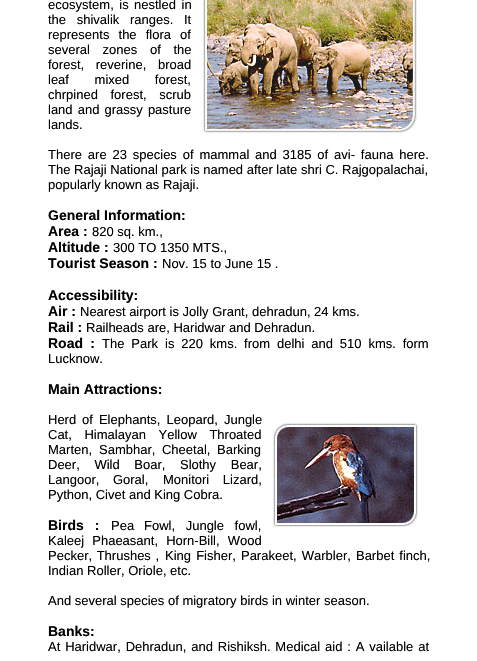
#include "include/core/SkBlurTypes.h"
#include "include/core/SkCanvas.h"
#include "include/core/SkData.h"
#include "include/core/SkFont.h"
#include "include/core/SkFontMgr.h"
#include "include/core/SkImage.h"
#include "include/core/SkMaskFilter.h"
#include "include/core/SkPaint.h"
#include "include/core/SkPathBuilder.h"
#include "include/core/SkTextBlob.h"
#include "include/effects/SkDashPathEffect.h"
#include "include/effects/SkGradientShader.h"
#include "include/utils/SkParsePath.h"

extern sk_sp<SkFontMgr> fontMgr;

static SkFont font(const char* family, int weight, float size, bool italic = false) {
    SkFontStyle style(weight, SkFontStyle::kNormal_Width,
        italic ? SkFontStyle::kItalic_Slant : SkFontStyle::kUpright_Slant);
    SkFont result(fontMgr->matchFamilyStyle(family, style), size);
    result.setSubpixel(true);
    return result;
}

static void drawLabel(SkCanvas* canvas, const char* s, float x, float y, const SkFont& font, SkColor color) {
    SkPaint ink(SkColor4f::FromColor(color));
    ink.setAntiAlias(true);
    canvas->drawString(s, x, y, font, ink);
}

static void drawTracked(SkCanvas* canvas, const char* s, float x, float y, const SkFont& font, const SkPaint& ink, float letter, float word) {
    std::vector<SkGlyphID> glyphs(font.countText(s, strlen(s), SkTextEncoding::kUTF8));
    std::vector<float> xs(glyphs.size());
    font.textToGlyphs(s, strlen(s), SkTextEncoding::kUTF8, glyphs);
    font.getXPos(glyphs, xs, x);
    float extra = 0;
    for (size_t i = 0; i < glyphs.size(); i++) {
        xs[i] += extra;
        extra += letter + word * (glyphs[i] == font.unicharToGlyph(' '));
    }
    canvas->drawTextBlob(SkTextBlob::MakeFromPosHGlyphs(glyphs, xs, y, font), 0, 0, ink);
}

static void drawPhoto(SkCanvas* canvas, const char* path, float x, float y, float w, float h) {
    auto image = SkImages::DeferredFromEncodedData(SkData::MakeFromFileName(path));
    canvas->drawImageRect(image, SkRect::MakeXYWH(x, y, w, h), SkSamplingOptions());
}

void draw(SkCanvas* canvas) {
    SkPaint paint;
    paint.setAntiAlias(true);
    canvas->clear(0xFFFFFFFF);
    SkFont font1 = font("Liberation Sans", 400, 13);
    paint.setColor(0xFF000000);
    drawTracked(canvas, "ecosystem, is", 48, 9, font1, paint, 0, 2);
    drawTracked(canvas, "nestled in", 134, 9, font1, paint, 0, 2);
    drawPhoto(canvas, "assets/img1.png", 201, 0, 216, 135);
    drawTracked(canvas, "the shivalik ranges. It", 48, 24, font1, paint, 0, 7);
    drawTracked(canvas, "represents the flora of", 48, 39, font1, paint, 0, 5.5f);
    drawTracked(canvas, "several zones", 48, 54, font1, paint, 0, 9);
    drawTracked(canvas, "of the", 150, 54, font1, paint, 0, 9);
    drawTracked(canvas, "forest, reverine, broad", 48, 69, font1, paint, 0, 8);
    drawTracked(canvas, "leaf mixed forest,", 48, 84, font1, paint, 0, 22);
    drawTracked(canvas, "chrpined forest, scrub", 48, 99, font1, paint, 0, 9);
    drawTracked(canvas, "land and grassy pasture", 48, 114, font1, paint, 0, 1.5f);
    drawLabel(canvas, "lands.", 48, 129, font1, 0xFF000000);
    drawTracked(canvas, "There are 23 species of mammal", 48, 159, font1, paint, 0, 2.25f);
    drawTracked(canvas, "and 3185 of avi- fauna here.", 255, 159, font1, paint, 0, 2.25f);
    drawLabel(canvas, "The Rajaji National park is named after late shri C. Rajgopalachai,", 48, 174, font1, 0xFF000000);
    drawLabel(canvas, "popularly known as Rajaji.", 48, 189, font1, 0xFF000000);
    SkFont font2 = font("Liberation Sans", 700, 14);
    drawLabel(canvas, "General Information:", 48, 220, font2, 0xFF000000);
    drawLabel(canvas, "Area :", 48, 236, font2, 0xFF000000);
    drawLabel(canvas, "820 sq. km.,", 92, 236, font1, 0xFF000000);
    drawLabel(canvas, "Altitude :", 48, 252, font2, 0xFF000000);
    drawLabel(canvas, "300 TO 1350 MTS.,", 113, 252, font1, 0xFF000000);
    drawLabel(canvas, "Tourist Season :", 48, 268, font2, 0xFF000000);
    drawLabel(canvas, "Nov. 15 to June 15 .", 162, 268, font1, 0xFF000000);
    drawLabel(canvas, "Accessibility:", 48, 300, font2, 0xFF000000);
    drawLabel(canvas, "Air :", 48, 316, font2, 0xFF000000);
    drawLabel(canvas, "Nearest airport is Jolly Grant, dehradun, 24 kms.", 80, 316, font1, 0xFF000000);
    drawLabel(canvas, "Rail :", 48, 332, font2, 0xFF000000);
    drawLabel(canvas, "Railheads are, Haridwar and Dehradun.", 86, 332, font1, 0xFF000000);
    drawTracked(canvas, "Road :", 48, 348, font2, paint, 0, 3.25f);
    drawTracked(canvas, "The Park", 102, 348, font1, paint, 0, 3.25f);
    drawTracked(canvas, "is 220 kms. from delhi and 510 kms. form", 165, 348, font1, paint, 0, 3.25f);
    drawLabel(canvas, "Lucknow.", 48, 363, font1, 0xFF000000);
    drawLabel(canvas, "Main Attractions:", 48, 394, font2, 0xFF000000);
    drawLabel(canvas, "Herd", 48, 424, font1, 0xFF000000);
    drawTracked(canvas, "of Elephants, Leopard, Jungle", 82, 424, font1, paint, 0, 2.5f);
    drawTracked(canvas, "Cat, Himalayan Yellow Throated", 48, 439, font1, paint, 0, 9);
    drawPhoto(canvas, "assets/img2.png", 272, 422, 147, 105);
    drawLabel(canvas, "Marten,", 48, 454, font1, 0xFF000000);
    drawTracked(canvas, "Sambhar, Cheetal, Barking", 99, 454, font1, paint, 0, 3);
    drawTracked(canvas, "Deer, Wild Boar, Slothy Bear,", 48, 469, font1, paint, 0, 11);
    drawTracked(canvas, "Langoor, Goral,", 48, 484, font1, paint, 0, 10);
    drawTracked(canvas, "Monitori Lizard,", 163, 484, font1, paint, 0, 10);
    drawLabel(canvas, "Python, Civet and King Cobra.", 48, 499, font1, 0xFF000000);
    drawTracked(canvas, "Birds :", 48, 530, font2, paint, 0, 7);
    drawLabel(canvas, "Pea", 111, 530, font1, 0xFF000000);
    drawTracked(canvas, "Fowl, Jungle fowl,", 144, 530, font1, paint, 0, 7);
    drawTracked(canvas, "Kaleej Phaeasant, Horn-Bill, Wood", 48, 545, font1, paint, 0, 4.5f);
    drawTracked(canvas, "Pecker, Thrushes ,", 48, 560, font1, paint, 0, 1);
    drawTracked(canvas, "King Fisher, Parakeet, Warbler, Barbet finch,", 165, 560, font1, paint, 0, 1.5f);
    drawLabel(canvas, "Indian Roller, Oriole, etc.", 48, 575, font1, 0xFF000000);
    drawLabel(canvas, "And several species of migratory birds in winter season.", 48, 605, font1, 0xFF000000);
    drawLabel(canvas, "Banks:", 48, 636, font2, 0xFF000000);
    drawTracked(canvas, "At Haridwar, Dehradun, and Rishiksh. Medical aid : A vailable at", 48, 651, font1, paint, 0, 1.25f);
}
